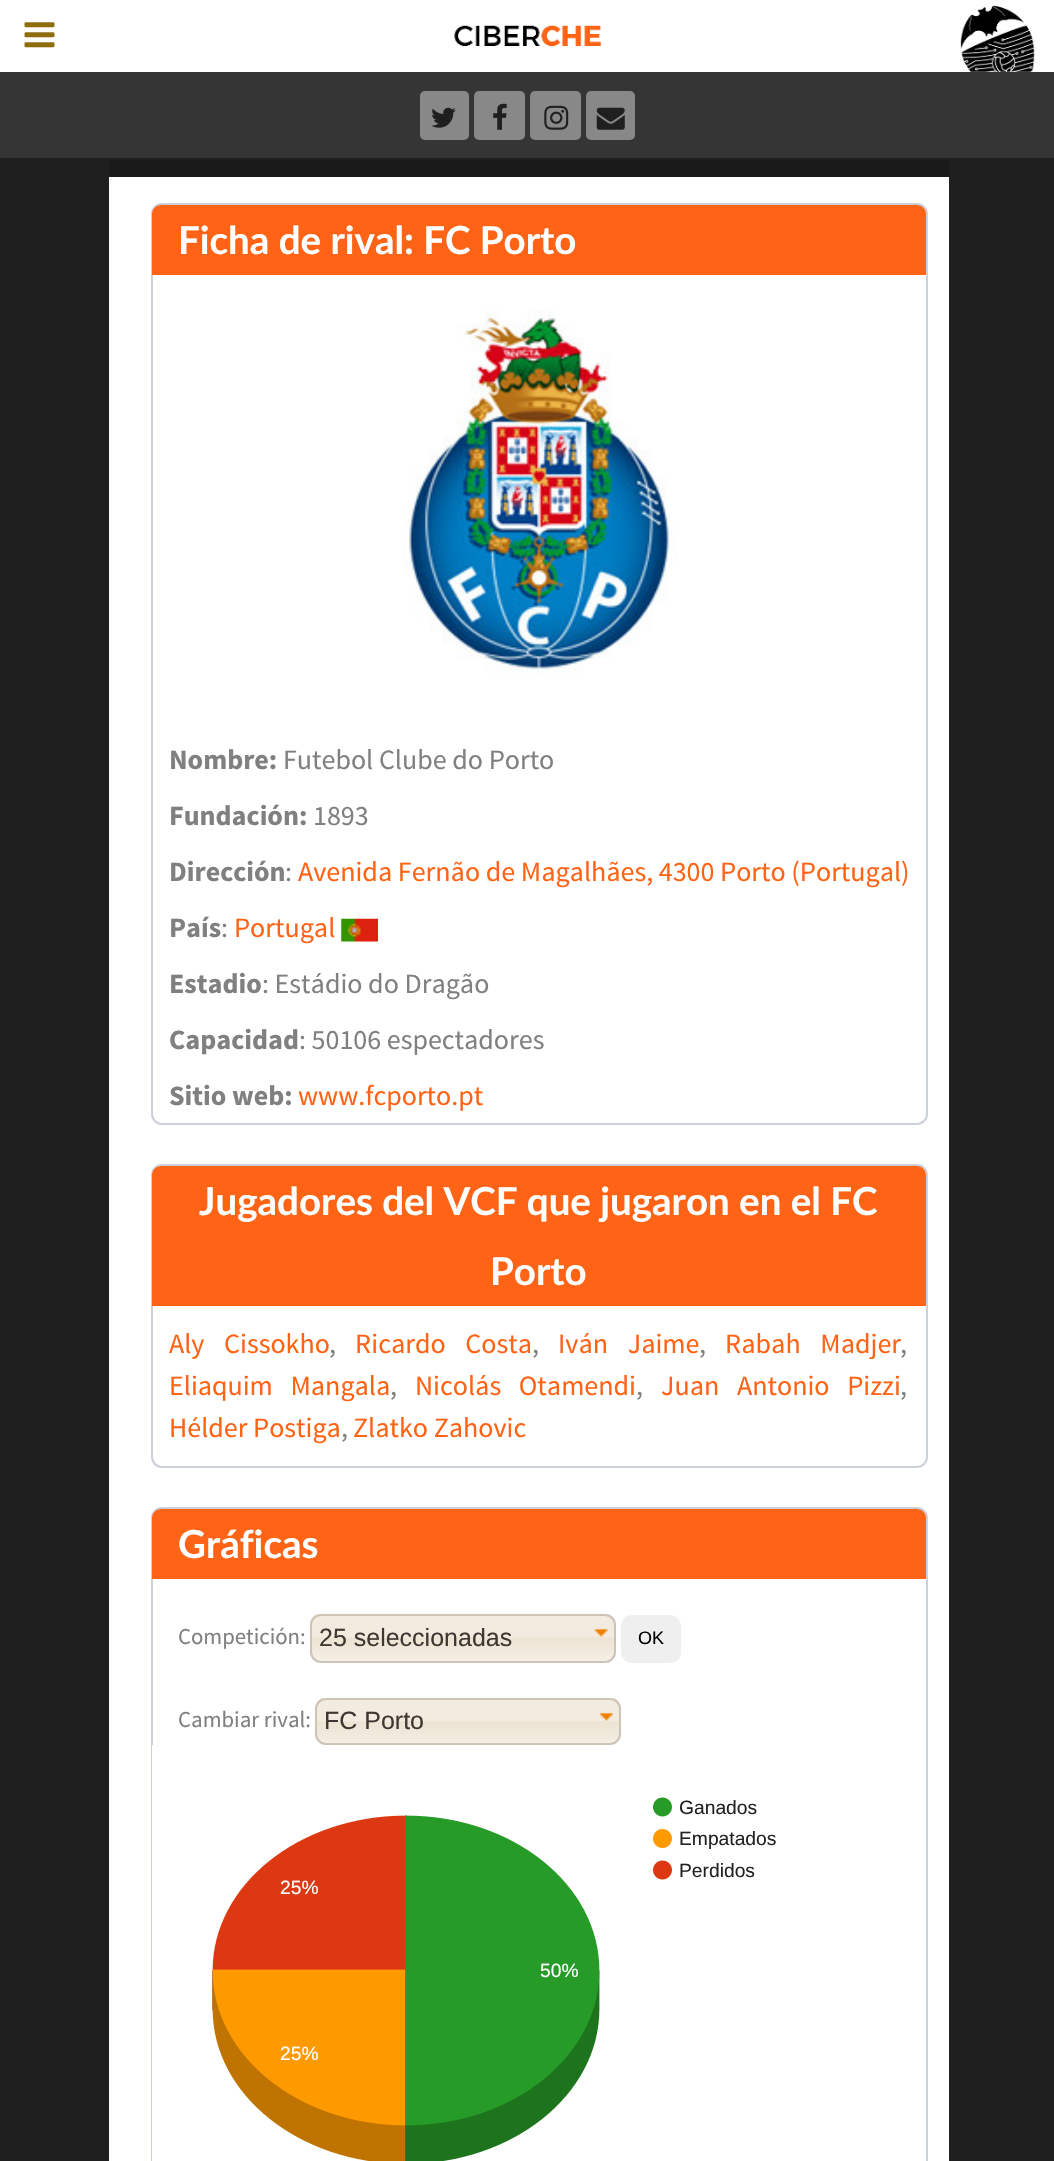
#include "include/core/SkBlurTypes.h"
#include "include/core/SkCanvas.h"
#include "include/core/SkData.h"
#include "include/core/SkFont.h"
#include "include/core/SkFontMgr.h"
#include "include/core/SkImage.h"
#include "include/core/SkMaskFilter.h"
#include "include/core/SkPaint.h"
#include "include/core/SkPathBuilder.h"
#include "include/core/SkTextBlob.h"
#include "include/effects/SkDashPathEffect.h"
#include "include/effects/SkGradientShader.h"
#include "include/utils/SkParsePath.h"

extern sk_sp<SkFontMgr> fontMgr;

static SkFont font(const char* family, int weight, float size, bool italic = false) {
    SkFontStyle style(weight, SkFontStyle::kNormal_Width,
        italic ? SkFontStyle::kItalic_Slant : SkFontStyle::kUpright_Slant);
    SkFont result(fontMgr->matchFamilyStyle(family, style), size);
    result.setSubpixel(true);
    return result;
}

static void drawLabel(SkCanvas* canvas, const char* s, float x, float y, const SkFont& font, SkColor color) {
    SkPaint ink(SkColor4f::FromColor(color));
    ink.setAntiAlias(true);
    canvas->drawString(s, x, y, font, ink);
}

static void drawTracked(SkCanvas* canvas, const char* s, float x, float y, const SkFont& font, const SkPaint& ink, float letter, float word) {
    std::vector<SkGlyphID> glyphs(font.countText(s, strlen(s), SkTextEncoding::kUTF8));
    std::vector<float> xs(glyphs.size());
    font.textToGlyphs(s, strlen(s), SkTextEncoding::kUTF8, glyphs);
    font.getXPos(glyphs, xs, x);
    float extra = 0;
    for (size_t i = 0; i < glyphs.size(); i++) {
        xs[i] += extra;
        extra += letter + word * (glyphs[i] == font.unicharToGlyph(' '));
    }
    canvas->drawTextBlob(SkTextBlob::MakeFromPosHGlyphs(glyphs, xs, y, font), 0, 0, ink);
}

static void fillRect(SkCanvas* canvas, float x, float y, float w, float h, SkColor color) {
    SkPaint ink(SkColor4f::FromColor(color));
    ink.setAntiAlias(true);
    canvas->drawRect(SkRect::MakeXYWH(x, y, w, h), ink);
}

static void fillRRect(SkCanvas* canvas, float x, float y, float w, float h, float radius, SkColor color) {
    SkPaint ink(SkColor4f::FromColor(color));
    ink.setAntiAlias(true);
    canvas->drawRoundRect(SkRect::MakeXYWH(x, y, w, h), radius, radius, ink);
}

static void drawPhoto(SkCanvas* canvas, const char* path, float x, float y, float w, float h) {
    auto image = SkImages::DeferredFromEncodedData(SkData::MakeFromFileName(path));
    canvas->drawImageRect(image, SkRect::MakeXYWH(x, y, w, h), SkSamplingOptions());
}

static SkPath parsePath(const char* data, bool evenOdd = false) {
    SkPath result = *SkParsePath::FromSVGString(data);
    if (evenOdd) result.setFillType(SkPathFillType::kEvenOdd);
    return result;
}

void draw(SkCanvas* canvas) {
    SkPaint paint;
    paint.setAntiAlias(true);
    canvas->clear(0xFF1F1F1F);
    fillRect(canvas, 0, 0, 1054, 72, 0xFFFFFFFF);
    drawPhoto(canvas, "assets/img1.png", 454, 25, 147, 22);
    drawPhoto(canvas, "assets/img2.png", 960, 5, 75, 67);
    drawPhoto(canvas, "assets/img3.png", 24, 22, 31, 26);
    fillRect(canvas, 0, 72, 1054, 86, 0xFF353535);
    fillRRect(canvas, 420, 91, 49, 49, 5, 0xFF888888);
    drawPhoto(canvas, "assets/img4.png", 431, 107, 25, 21);
    fillRRect(canvas, 474, 91, 51, 49, 5, 0xFF888888);
    drawPhoto(canvas, "assets/img5.png", 493, 103, 14, 27);
    fillRRect(canvas, 530, 91, 51, 49, 5, 0xFF888888);
    drawPhoto(canvas, "assets/img6.png", 544, 105, 25, 25);
    fillRRect(canvas, 586, 91, 49, 49, 5, 0xFF888888);
    drawPhoto(canvas, "assets/img7.png", 596, 107, 29, 23);
    fillRect(canvas, 109, 160, 840, 17, 0xFF1A1A1A);
    fillRect(canvas, 109, 177, 840, 1984, 0xFFFFFFFF);
    paint.setStroke(true);
    paint.setStrokeWidth(2);
    paint.setColor(0xFFCCD1D9);
    canvas->drawRoundRect(SkRect::MakeXYWH(152, 204, 775, 920), 10, 10, paint);
    paint.setStroke(false);
    paint.setColor(0xFFFF6315);
    canvas->drawPath(parsePath("M161 205H917C922 205 926 209 926 214V275H152V214C152 209 156 205 161 205Z"), paint);
    SkFont font1 = font("Lato", 700, 38.5f);
    drawLabel(canvas, "Ficha de rival: FC Porto", 178, 254, font1, 0xFFFFFFFF);
    drawPhoto(canvas, "assets/img8.png", 401, 310, 276, 364);
    SkFont font2 = font("Source Sans Pro", 700, 28);
    drawLabel(canvas, "Nombre:", 169, 769, font2, 0xFF808080);
    SkFont font3 = font("Source Sans Pro", 400, 28);
    drawLabel(canvas, "Futebol Clube do Porto", 283, 769, font3, 0xFF808080);
    drawLabel(canvas, "Fundación:", 169, 825, font2, 0xFF808080);
    drawLabel(canvas, "1893", 313, 825, font3, 0xFF808080);
    drawLabel(canvas, "Dirección", 169, 881, font2, 0xFF808080);
    drawLabel(canvas, ":", 285, 881, font3, 0xFF808080);
    drawLabel(canvas, "Avenida Fernão de Magalhães, 4300 Porto (Portugal)", 298, 881, font3, 0xFFFF6315);
    drawLabel(canvas, "País", 169, 937, font2, 0xFF808080);
    drawLabel(canvas, ":", 221, 937, font3, 0xFF808080);
    drawLabel(canvas, "Portugal", 234, 937, font3, 0xFFFF6315);
    drawPhoto(canvas, "assets/img9.png", 341, 918, 37, 24);
    drawLabel(canvas, "Estadio", 169, 993, font2, 0xFF808080);
    drawLabel(canvas, ": Estádio do Dragão", 262, 993, font3, 0xFF808080);
    drawLabel(canvas, "Capacidad", 169, 1049, font2, 0xFF808080);
    drawLabel(canvas, ": 50106 espectadores", 299, 1049, font3, 0xFF808080);
    drawLabel(canvas, "Sitio web:", 169, 1105, font2, 0xFF808080);
    drawLabel(canvas, "www.fcporto.pt", 298, 1105, font3, 0xFFFF6315);
    paint.setStroke(true);
    paint.setColor(0xFFCCD1D9);
    canvas->drawRoundRect(SkRect::MakeXYWH(152, 1165, 775, 302), 10, 10, paint);
    paint.setStroke(false);
    paint.setColor(0xFFFF6315);
    canvas->drawPath(parsePath("M161 1166H917C922 1166 926 1170 926 1175V1306H152V1175C152 1170 156 1166 161 1166Z"), paint);
    drawLabel(canvas, "Jugadores del VCF que jugaron en el FC", 199, 1215, font1, 0xFFFFFFFF);
    drawLabel(canvas, "Porto", 490, 1285, font1, 0xFFFFFFFF);
    drawTracked(canvas, "Aly Cissokho", 169, 1353, font3, paint, 0, 14);
    drawLabel(canvas, ",", 329, 1353, font3, 0xFF808080);
    drawTracked(canvas, "Ricardo Costa", 355, 1353, font3, paint, 0, 14);
    drawLabel(canvas, ",", 532, 1353, font3, 0xFF808080);
    drawTracked(canvas, "Iván Jaime", 558, 1353, font3, paint, 0, 14);
    drawLabel(canvas, ",", 699, 1353, font3, 0xFF808080);
    drawTracked(canvas, "Rabah Madjer", 725, 1353, font3, paint, 0, 14);
    drawLabel(canvas, ",", 900, 1353, font3, 0xFF808080);
    drawTracked(canvas, "Eliaquim Mangala", 169, 1395, font3, paint, 0, 12);
    drawLabel(canvas, ",", 390, 1395, font3, 0xFF808080);
    drawTracked(canvas, "Nicolás Otamendi", 415, 1395, font3, paint, 0, 12);
    drawLabel(canvas, ",", 636, 1395, font3, 0xFF808080);
    drawTracked(canvas, "Juan Antonio Pizzi", 661, 1395, font3, paint, 0, 12);
    drawLabel(canvas, ",", 900, 1395, font3, 0xFF808080);
    drawLabel(canvas, "Hélder Postiga", 169, 1437, font3, 0xFFFF6315);
    drawLabel(canvas, ",", 341, 1437, font3, 0xFF808080);
    drawLabel(canvas, "Zlatko Zahovic", 353, 1437, font3, 0xFFFF6315);
    paint.setStroke(true);
    paint.setColor(0xFFCCD1D9);
    canvas->drawRoundRect(SkRect::MakeXYWH(152, 1508, 775, 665), 10, 10, paint);
    paint.setStroke(false);
    paint.setColor(0xFFFF6315);
    canvas->drawPath(parsePath("M161 1509H917C922 1509 926 1513 926 1518V1579H152V1518C152 1513 156 1509 161 1509Z"), paint);
    drawLabel(canvas, "Gráficas", 178, 1558, font1, 0xFFFFFFFF);
    SkFont font4 = font("Source Sans Pro", 400, 22.75f);
    drawLabel(canvas, "Competición:", 178, 1644, font4, 0xFF808080);
    drawPhoto(canvas, "assets/img10.png", 310, 1613, 306, 50);
    paint.setStroke(true);
    paint.setColor(0xFFCDC3B7);
    canvas->drawRoundRect(SkRect::MakeXYWH(311, 1615, 304, 47), 10, 10, paint);
    SkFont font5 = font("Liberation Sans", 400, 25);
    drawLabel(canvas, "25 seleccionadas", 319, 1646, font5, 0xFF3F3731);
    drawPhoto(canvas, "assets/img11.png", 594, 1628, 14, 9);
    fillRRect(canvas, 621, 1615, 60, 48, 11, 0xFFEFEFEF);
    SkFont font6 = font("Liberation Sans", 400, 18);
    drawLabel(canvas, "OK", 638, 1644, font6, 0xFF000000);
    drawLabel(canvas, "Cambiar rival:", 178, 1727, font4, 0xFF808080);
    drawPhoto(canvas, "assets/img12.png", 315, 1697, 306, 48);
    canvas->drawRoundRect(SkRect::MakeXYWH(316, 1699, 304, 45), 10, 10, paint);
    drawLabel(canvas, "FC Porto", 324, 1729, font5, 0xFF3F3731);
    drawPhoto(canvas, "assets/img13.png", 599, 1712, 14, 9);
    drawPhoto(canvas, "assets/img14.png", 152, 1745, 520, 416);
    SkFont font7 = font("Liberation Sans", 400, 19.25f);
    drawLabel(canvas, "Ganados", 679, 1814, font7, 0xFF222222);
    drawLabel(canvas, "Empatados", 679, 1845, font7, 0xFF222222);
    drawLabel(canvas, "Perdidos", 679, 1877, font7, 0xFF222222);
    drawLabel(canvas, "25%", 280, 1894, font7, 0xFFFFFFFF);
    drawLabel(canvas, "50%", 540, 1977, font7, 0xFFFFFFFF);
    drawLabel(canvas, "25%", 280, 2060, font7, 0xFFFFFFFF);
}
